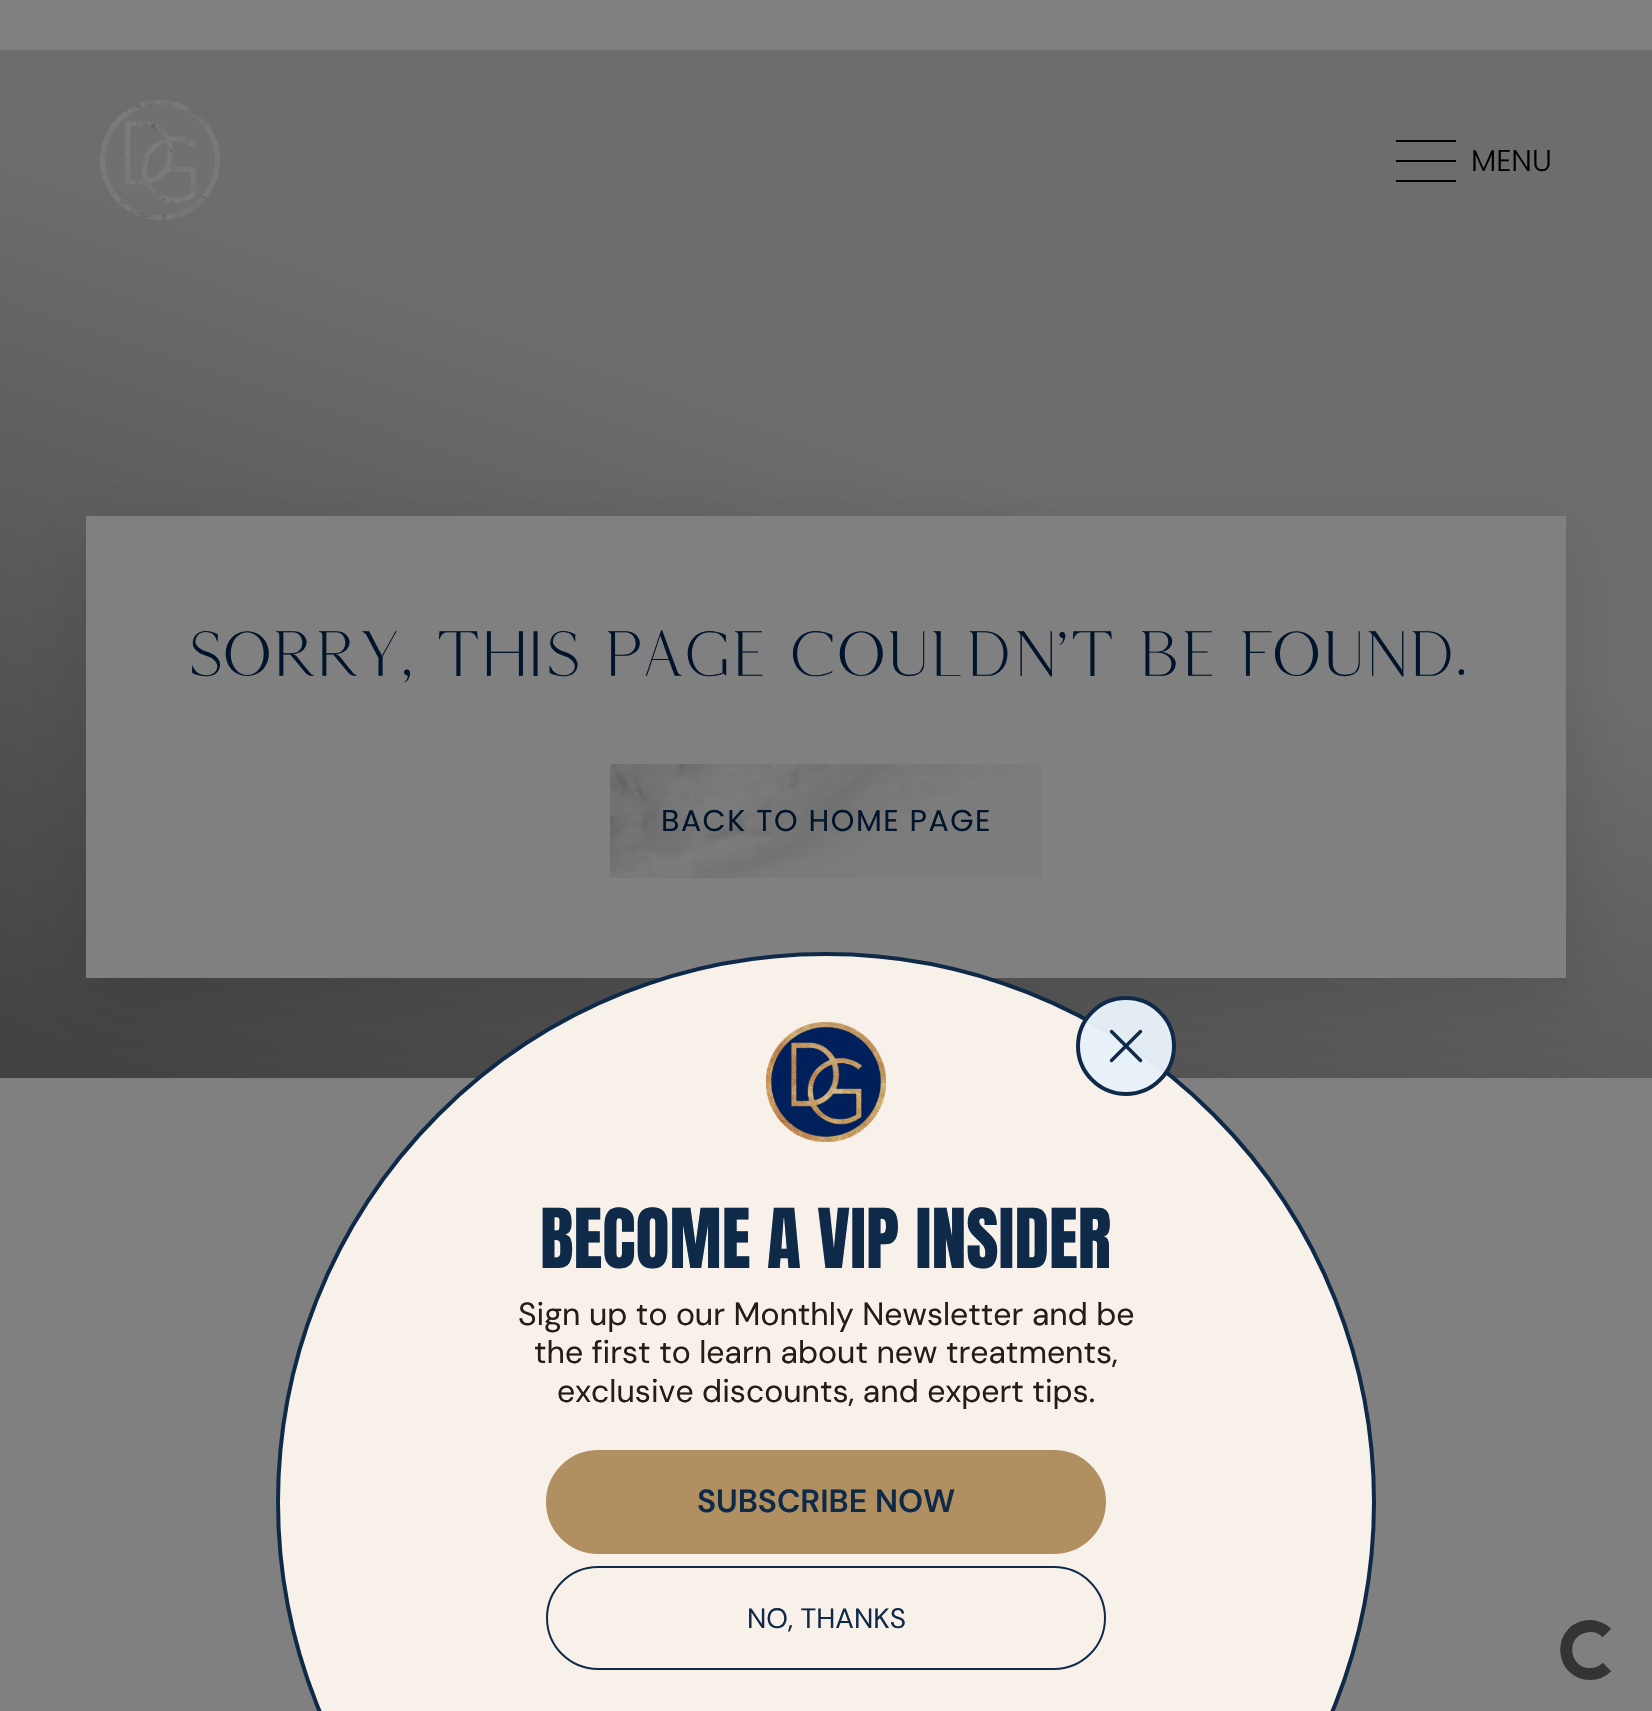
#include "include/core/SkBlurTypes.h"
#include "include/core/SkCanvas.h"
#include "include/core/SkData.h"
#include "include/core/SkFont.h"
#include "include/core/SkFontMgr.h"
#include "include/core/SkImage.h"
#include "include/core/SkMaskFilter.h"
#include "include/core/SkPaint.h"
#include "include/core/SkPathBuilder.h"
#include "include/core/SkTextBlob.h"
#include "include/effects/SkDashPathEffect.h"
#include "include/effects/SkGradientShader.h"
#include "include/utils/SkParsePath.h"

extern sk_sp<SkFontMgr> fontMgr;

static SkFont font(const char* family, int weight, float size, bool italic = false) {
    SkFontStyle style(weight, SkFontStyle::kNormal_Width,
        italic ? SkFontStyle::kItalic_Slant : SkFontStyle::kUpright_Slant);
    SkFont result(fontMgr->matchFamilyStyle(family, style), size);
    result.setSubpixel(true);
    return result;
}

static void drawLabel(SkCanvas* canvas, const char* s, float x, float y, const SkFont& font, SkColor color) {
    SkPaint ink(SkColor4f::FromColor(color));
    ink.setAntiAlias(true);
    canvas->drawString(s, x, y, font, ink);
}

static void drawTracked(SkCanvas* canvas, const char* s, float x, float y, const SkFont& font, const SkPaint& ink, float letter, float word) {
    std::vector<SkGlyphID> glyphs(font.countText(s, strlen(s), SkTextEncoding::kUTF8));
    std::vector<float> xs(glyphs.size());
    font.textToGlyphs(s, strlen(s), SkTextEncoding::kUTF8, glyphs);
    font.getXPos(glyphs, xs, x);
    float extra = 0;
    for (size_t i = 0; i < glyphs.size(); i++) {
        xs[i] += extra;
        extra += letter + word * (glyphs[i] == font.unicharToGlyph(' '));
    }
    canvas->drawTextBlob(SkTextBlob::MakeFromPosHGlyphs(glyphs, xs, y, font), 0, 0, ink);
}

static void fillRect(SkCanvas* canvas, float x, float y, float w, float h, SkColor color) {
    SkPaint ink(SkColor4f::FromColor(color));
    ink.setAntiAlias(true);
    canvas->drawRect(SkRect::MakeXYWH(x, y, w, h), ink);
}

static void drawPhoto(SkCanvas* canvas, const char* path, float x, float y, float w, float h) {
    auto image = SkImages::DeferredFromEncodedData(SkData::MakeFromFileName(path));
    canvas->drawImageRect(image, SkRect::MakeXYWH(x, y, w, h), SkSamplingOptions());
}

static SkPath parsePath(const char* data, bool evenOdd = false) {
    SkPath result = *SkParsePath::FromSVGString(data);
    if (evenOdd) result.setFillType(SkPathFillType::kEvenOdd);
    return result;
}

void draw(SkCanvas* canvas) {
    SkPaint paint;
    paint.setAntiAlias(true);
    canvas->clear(0xFF808080);
    {
        const SkColor colors[] = {0xFF6D6D6D, 0xFF424242};
        const float stops[] = {0.41f, 0.98f};
        const SkPoint ends[] = {{1069, -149}, {583, 1277}};
        paint.setShader(SkGradientShader::MakeLinear(ends, colors, stops, 2, SkTileMode::kClamp));
        paint.setAlpha(255);
    }
    canvas->drawRect(SkRect::MakeXYWH(0, 50, 1652, 1028), paint);
    drawPhoto(canvas, "assets/img1.png", 100, 100, 120, 120);
    fillRect(canvas, 1396, 140, 60, 2, 0xFF000000);
    fillRect(canvas, 1396, 160, 60, 2, 0xFF000000);
    fillRect(canvas, 1396, 180, 60, 2, 0xFF000000);
    SkFont font1 = font("Poppins", 300, 30);
    drawLabel(canvas, "MENU", 1471, 171, font1, 0xFF000000);
    paint.setShader(nullptr);
    paint.setColor(0x1A000000);
    paint.setMaskFilter(SkMaskFilter::MakeBlur(kNormal_SkBlurStyle, 30));
    canvas->drawRect(SkRect::MakeXYWH(86, 536, 1480, 462), paint);
    paint.setMaskFilter(nullptr);
    fillRect(canvas, 86, 516, 1480, 462, 0xFF808080);
    SkFont font2 = font("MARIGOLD", 400, 64);
    paint.setColor(0xFF00152B);
    drawTracked(canvas, "Sorry, this page couldn't be found.", 186, 676, font2, paint, -3.2f, 0);
    drawPhoto(canvas, "assets/img2.png", 610, 764, 432, 114);
    SkFont font3 = font("Poppins", 400, 30);
    drawTracked(canvas, "BACK TO HOME PAGE", 661, 831, font3, paint, 1.5f, 0);
    paint.setColor(0xFFF8F1E9);
    canvas->drawCircle(826, 1502, 548, paint);
    paint.setStroke(true);
    paint.setStrokeWidth(4);
    paint.setColor(0xFF0F2A49);
    canvas->drawCircle(826, 1502, 548, paint);
    paint.setStroke(false);
    paint.setColor(0xF7E7EFF8);
    canvas->drawCircle(1126, 1046, 48, paint);
    paint.setStroke(true);
    paint.setColor(0xFF0F2A49);
    canvas->drawCircle(1126, 1046, 48, paint);
    paint.setStrokeWidth(3.4f);
    paint.setStrokeCap(SkPaint::kRound_Cap);
    canvas->drawPath(parsePath("M1111.5 1031.5L1140.5 1060.5M1140.5 1031.5L1111.5 1060.5"), paint);
    drawPhoto(canvas, "assets/img3.png", 766, 1022, 120, 120);
    SkFont font4 = font("Anton", 400, 70);
    drawLabel(canvas, "BECOME A VIP INSIDER", 540, 1268, font4, 0xFF0F2A49);
    SkFont font5 = font("DM Sans", 400, 32);
    drawLabel(canvas, "Sign up to our Monthly Newsletter and be", 518, 1325, font5, 0xFF241C15);
    drawLabel(canvas, "the first to learn about new treatments,", 534, 1363, font5, 0xFF241C15);
    drawLabel(canvas, "exclusive discounts, and expert tips.", 557, 1402, font5, 0xFF241C15);
    paint.setStroke(false);
    paint.setColor(0xFFB09061);
    canvas->drawRoundRect(SkRect::MakeXYWH(548, 1452, 556, 100), 50, 50, paint);
    paint.setStroke(true);
    paint.setStrokeWidth(4);
    paint.setStrokeCap(SkPaint::kButt_Cap);
    canvas->drawRoundRect(SkRect::MakeXYWH(548, 1452, 556, 100), 50, 50, paint);
    SkFont font6 = font("DM Sans", 600, 32);
    drawLabel(canvas, "SUBSCRIBE NOW", 697, 1512, font6, 0xFF0F2A49);
    paint.setStrokeWidth(2);
    paint.setColor(0xFF0F2A49);
    canvas->drawRoundRect(SkRect::MakeXYWH(547, 1567, 558, 102), 51, 51, paint);
    SkFont font7 = font("DM Sans", 400, 28);
    drawLabel(canvas, "NO, THANKS", 747, 1628, font7, 0xFF0F2A49);
    paint.setStrokeWidth(12);
    paint.setColor(0xFF343434);
    canvas->drawPath(parsePath("M1607 1667C1602.5 1671.5 1596.5 1674 1590 1674C1561.5 1674 1557 1632 1585.5 1626.5C1593 1625 1601.5 1627.5 1607 1633"), paint);
}
